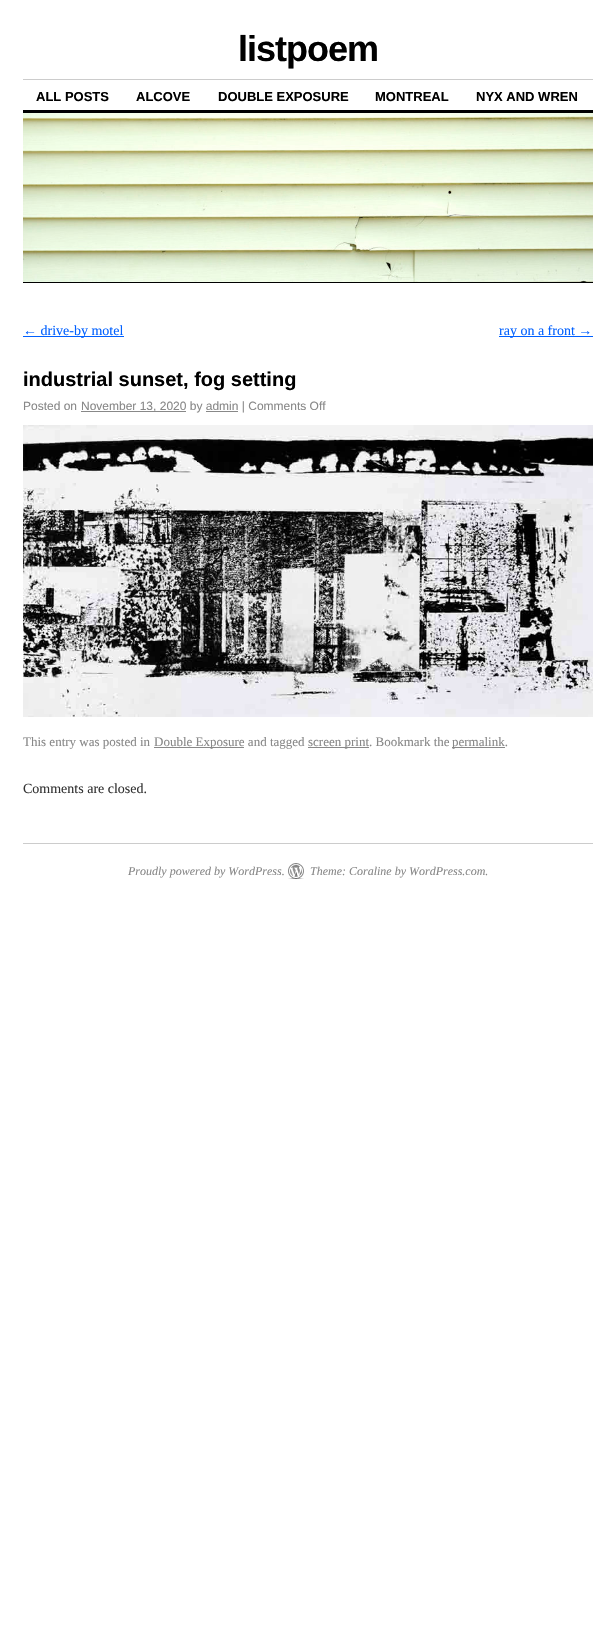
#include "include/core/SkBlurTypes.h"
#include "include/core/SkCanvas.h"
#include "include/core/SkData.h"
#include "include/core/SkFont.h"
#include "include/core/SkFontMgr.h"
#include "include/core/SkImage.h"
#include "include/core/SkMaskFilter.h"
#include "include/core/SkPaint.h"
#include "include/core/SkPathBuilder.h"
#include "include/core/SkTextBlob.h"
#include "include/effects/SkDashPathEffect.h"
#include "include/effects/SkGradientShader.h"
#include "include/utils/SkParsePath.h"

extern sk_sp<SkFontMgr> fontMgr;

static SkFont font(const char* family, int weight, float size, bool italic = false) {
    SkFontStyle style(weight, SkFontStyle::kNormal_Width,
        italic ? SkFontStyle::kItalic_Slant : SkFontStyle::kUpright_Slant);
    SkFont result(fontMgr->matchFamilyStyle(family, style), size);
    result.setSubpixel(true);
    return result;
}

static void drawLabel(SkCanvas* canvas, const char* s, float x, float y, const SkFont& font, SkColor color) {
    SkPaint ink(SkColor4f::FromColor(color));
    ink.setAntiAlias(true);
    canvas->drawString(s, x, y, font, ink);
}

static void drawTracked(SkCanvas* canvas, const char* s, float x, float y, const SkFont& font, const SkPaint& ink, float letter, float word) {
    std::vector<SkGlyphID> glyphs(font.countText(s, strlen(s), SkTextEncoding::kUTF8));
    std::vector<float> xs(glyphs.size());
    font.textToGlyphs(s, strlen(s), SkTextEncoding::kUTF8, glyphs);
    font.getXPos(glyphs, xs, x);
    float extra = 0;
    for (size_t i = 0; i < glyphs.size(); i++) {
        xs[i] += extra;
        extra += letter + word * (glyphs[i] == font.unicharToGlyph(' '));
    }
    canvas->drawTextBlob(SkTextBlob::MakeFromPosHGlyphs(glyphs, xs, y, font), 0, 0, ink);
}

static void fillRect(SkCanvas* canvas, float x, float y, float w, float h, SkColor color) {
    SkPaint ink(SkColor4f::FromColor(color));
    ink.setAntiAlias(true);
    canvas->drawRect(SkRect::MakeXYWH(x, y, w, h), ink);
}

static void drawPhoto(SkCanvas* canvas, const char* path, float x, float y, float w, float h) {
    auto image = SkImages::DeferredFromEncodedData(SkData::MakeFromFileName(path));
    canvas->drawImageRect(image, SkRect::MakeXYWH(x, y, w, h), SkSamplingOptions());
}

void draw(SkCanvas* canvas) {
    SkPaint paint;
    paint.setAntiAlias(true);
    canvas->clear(0xFFFFFFFF);
    SkFont font1 = font("Liberation Sans", 700, 36);
    paint.setColor(0xFF000000);
    drawTracked(canvas, "listpoem", 238, 61, font1, paint, -1, 0);
    fillRect(canvas, 23, 79, 570, 1, 0xFFCCCCCC);
    SkFont font2 = font("Liberation Sans", 700, 13);
    drawLabel(canvas, "ALL POSTS", 36, 101, font2, 0xFF000000);
    drawLabel(canvas, "ALCOVE", 136, 101, font2, 0xFF000000);
    drawLabel(canvas, "DOUBLE EXPOSURE", 218, 101, font2, 0xFF000000);
    drawLabel(canvas, "MONTREAL", 375, 101, font2, 0xFF000000);
    drawLabel(canvas, "NYX AND WREN", 476, 101, font2, 0xFF000000);
    fillRect(canvas, 23, 110, 570, 3, 0xFF000000);
    drawPhoto(canvas, "assets/img1.png", 23, 113, 570, 169);
    fillRect(canvas, 23, 282, 570, 1, 0xFF000000);
    fillRect(canvas, 23, 336, 101, 1, 0xFF0060FF);
    SkFont font3 = font("Liberation Serif", 400, 14);
    drawLabel(canvas, "← drive-by motel", 23, 335, font3, 0xFF0060FF);
    fillRect(canvas, 499, 336, 94, 1, 0xFF0060FF);
    drawLabel(canvas, "ray on a front →", 499, 335, font3, 0xFF0060FF);
    SkFont font4 = font("Liberation Sans", 700, 20);
    drawLabel(canvas, "industrial sunset, fog setting", 23, 386, font4, 0xFF000000);
    SkFont font5 = font("Liberation Sans", 400, 12);
    drawLabel(canvas, "Posted on", 23, 410, font5, 0xFF888888);
    fillRect(canvas, 81, 411, 105, 1, 0xFF888888);
    drawLabel(canvas, "November 13, 2020 by admin | Comments Off", 81, 410, font5, 0xFF888888);
    fillRect(canvas, 206, 411, 32, 1, 0xFF888888);
    drawPhoto(canvas, "assets/img2.png", 23, 425, 570, 292);
    SkFont font6 = font("Liberation Serif", 400, 13);
    drawLabel(canvas, "This entry was posted in", 23, 746, font6, 0xFF888888);
    fillRect(canvas, 154, 747, 90, 1, 0xFF888888);
    drawLabel(canvas, "Double Exposure and tagged", 154, 746, font6, 0xFF888888);
    fillRect(canvas, 308, 747, 61, 1, 0xFF888888);
    drawLabel(canvas, "screen print. Bookmark the", 308, 746, font6, 0xFF888888);
    fillRect(canvas, 452, 747, 53, 1, 0xFF888888);
    drawLabel(canvas, "permalink.", 452, 746, font6, 0xFF888888);
    drawLabel(canvas, "Comments are closed.", 23, 793, font3, 0xFF333333);
    fillRect(canvas, 23, 843, 570, 1, 0xFFCCCCCC);
    drawPhoto(canvas, "assets/img3.png", 288, 863, 16, 16);
    SkFont font7 = font("Liberation Serif", 400, 12, true);
    drawLabel(canvas, "Proudly powered by WordPress.", 128, 875, font7, 0xFF888888);
    drawLabel(canvas, "Theme: Coraline by WordPress.com.", 310, 875, font7, 0xFF888888);
}
